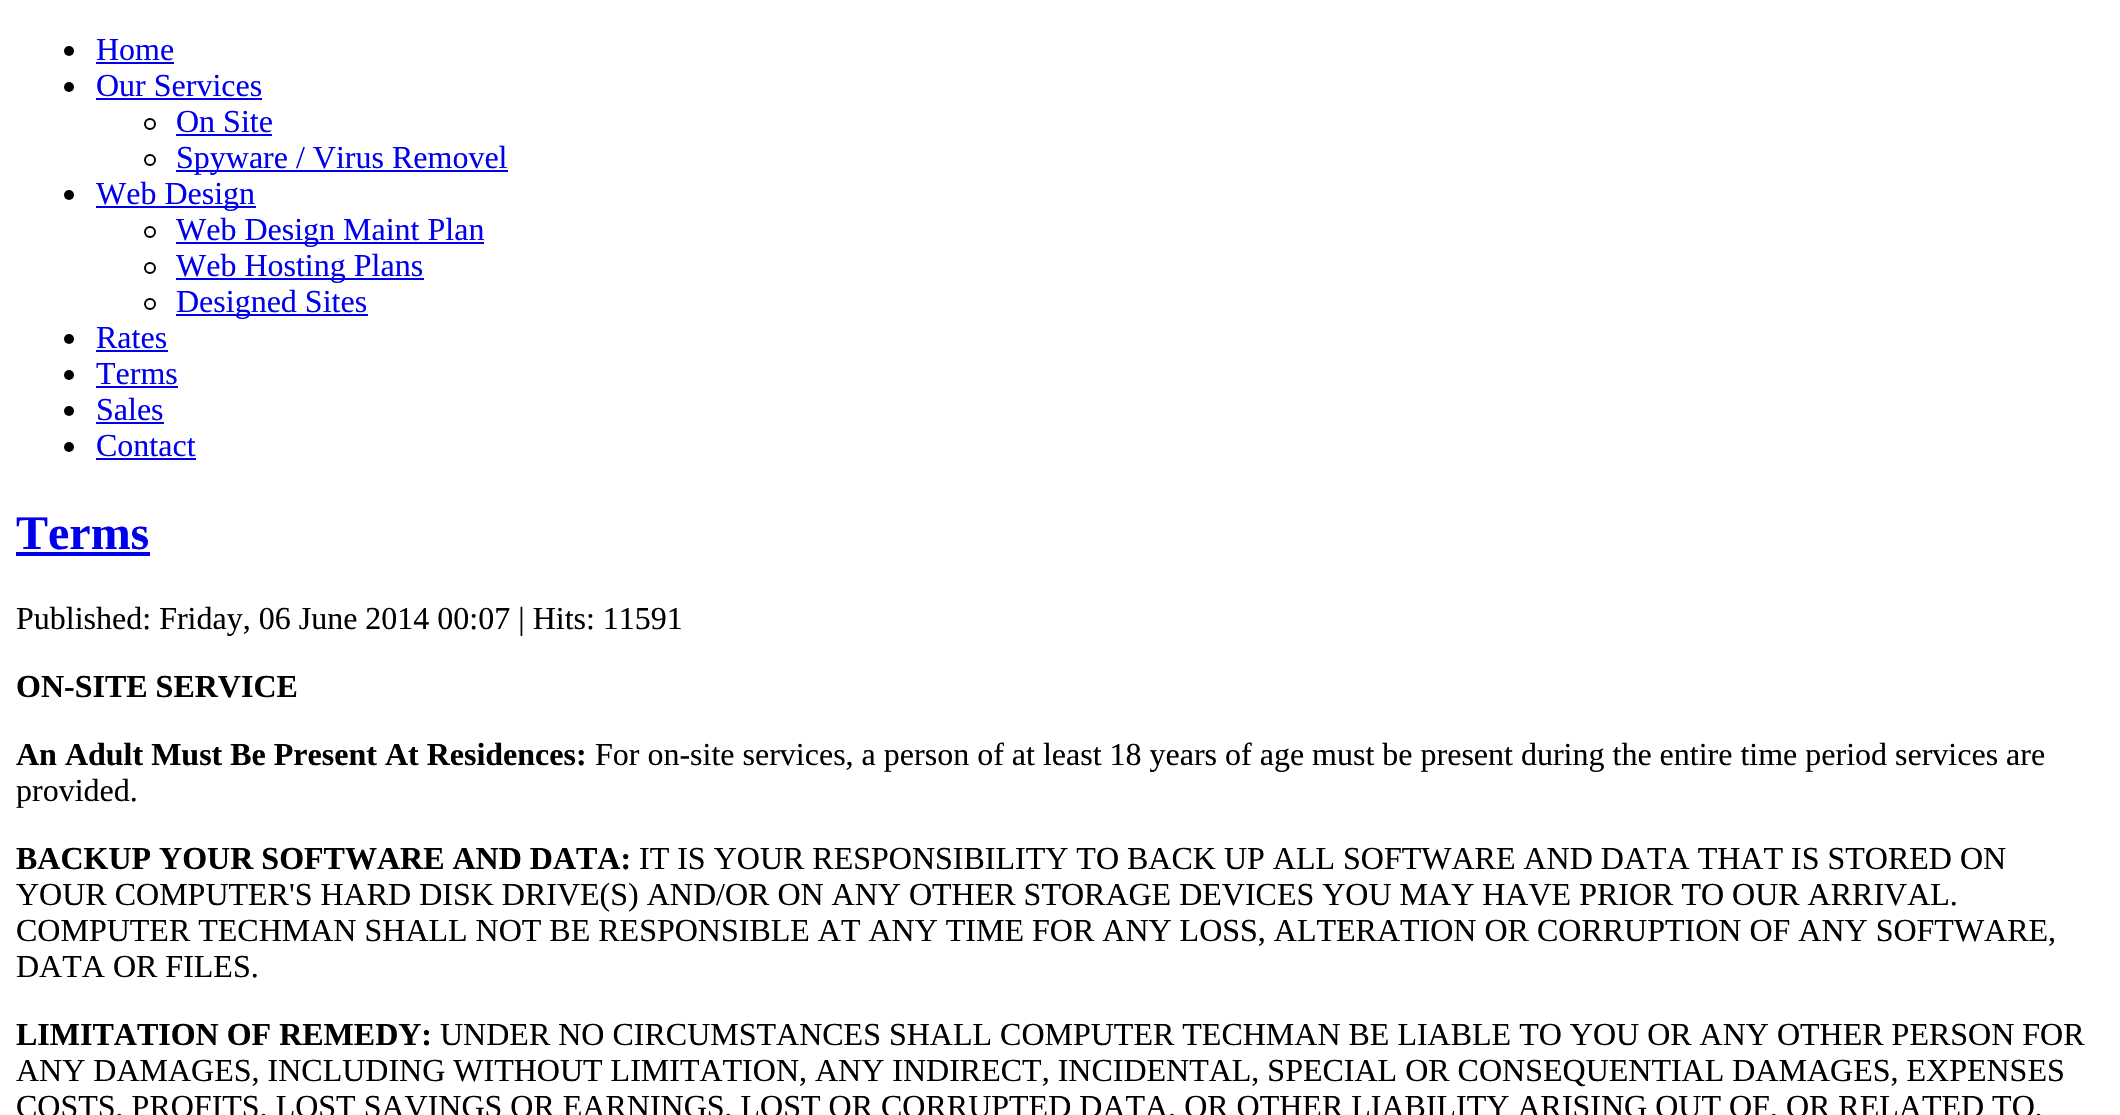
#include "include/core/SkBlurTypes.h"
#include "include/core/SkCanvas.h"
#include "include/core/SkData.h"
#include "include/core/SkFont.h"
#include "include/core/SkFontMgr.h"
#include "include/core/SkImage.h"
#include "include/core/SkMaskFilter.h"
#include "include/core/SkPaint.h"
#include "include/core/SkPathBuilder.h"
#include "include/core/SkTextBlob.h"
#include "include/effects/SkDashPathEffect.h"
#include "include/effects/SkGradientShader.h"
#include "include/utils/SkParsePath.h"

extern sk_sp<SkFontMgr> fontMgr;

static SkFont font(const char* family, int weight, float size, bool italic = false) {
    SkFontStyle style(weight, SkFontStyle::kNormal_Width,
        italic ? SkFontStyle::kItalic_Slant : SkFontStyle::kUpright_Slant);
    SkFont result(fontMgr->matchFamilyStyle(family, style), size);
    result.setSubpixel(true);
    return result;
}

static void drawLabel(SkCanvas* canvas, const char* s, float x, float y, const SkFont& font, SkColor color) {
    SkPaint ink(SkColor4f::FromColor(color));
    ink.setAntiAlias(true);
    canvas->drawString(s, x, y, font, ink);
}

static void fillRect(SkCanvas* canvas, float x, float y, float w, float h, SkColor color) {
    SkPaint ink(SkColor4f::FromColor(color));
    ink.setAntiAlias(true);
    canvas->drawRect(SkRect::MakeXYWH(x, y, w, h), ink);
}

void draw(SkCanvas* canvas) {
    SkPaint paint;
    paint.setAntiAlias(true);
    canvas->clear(0xFFFFFFFF);
    paint.setColor(0xFF000000);
    canvas->drawCircle(69, 51, 5, paint);
    SkFont font1 = font("Liberation Serif", 400, 32);
    drawLabel(canvas, "Home", 96, 60, font1, 0xFF0000EE);
    fillRect(canvas, 96, 62, 78, 2, 0xFF0000EE);
    canvas->drawCircle(69, 87, 5, paint);
    drawLabel(canvas, "Our Services", 96, 96, font1, 0xFF0000EE);
    fillRect(canvas, 96, 98, 166, 2, 0xFF0000EE);
    paint.setStroke(true);
    paint.setStrokeWidth(2);
    canvas->drawCircle(150, 124, 5, paint);
    drawLabel(canvas, "On Site", 176, 132, font1, 0xFF0000EE);
    fillRect(canvas, 176, 134, 96, 2, 0xFF0000EE);
    canvas->drawCircle(150, 160, 5, paint);
    fillRect(canvas, 176, 170, 332, 2, 0xFF0000EE);
    drawLabel(canvas, "Spyware / Virus Removel", 176, 168, font1, 0xFF0000EE);
    paint.setStroke(false);
    canvas->drawCircle(69, 195, 5, paint);
    fillRect(canvas, 96, 206, 160, 2, 0xFF0000EE);
    drawLabel(canvas, "Web Design", 96, 204, font1, 0xFF0000EE);
    paint.setStroke(true);
    canvas->drawCircle(150, 232, 5, paint);
    fillRect(canvas, 176, 242, 308, 2, 0xFF0000EE);
    drawLabel(canvas, "Web Design Maint Plan", 176, 240, font1, 0xFF0000EE);
    canvas->drawCircle(150, 268, 5, paint);
    fillRect(canvas, 176, 278, 248, 2, 0xFF0000EE);
    drawLabel(canvas, "Web Hosting Plans", 176, 276, font1, 0xFF0000EE);
    canvas->drawCircle(150, 304, 5, paint);
    fillRect(canvas, 176, 314, 192, 2, 0xFF0000EE);
    drawLabel(canvas, "Designed Sites", 176, 312, font1, 0xFF0000EE);
    paint.setStroke(false);
    canvas->drawCircle(69, 339, 5, paint);
    drawLabel(canvas, "Rates", 96, 348, font1, 0xFF0000EE);
    fillRect(canvas, 96, 350, 72, 2, 0xFF0000EE);
    canvas->drawCircle(69, 375, 5, paint);
    drawLabel(canvas, "Terms", 96, 384, font1, 0xFF0000EE);
    fillRect(canvas, 96, 386, 82, 2, 0xFF0000EE);
    canvas->drawCircle(69, 411, 5, paint);
    drawLabel(canvas, "Sales", 96, 420, font1, 0xFF0000EE);
    fillRect(canvas, 96, 422, 68, 2, 0xFF0000EE);
    canvas->drawCircle(69, 447, 5, paint);
    drawLabel(canvas, "Contact", 96, 456, font1, 0xFF0000EE);
    fillRect(canvas, 96, 458, 100, 2, 0xFF0000EE);
    SkFont font2 = font("Liberation Serif", 700, 48);
    drawLabel(canvas, "Terms", 16, 549, font2, 0xFF0000EE);
    fillRect(canvas, 16, 552, 134, 4, 0xFF0000EE);
    drawLabel(canvas, "Published: Friday, 06 June 2014 00:07 | Hits: 11591", 16, 629, font1, 0xFF000000);
    SkFont font3 = font("Liberation Serif", 700, 32);
    drawLabel(canvas, "ON-SITE SERVICE", 16, 697, font3, 0xFF000000);
    drawLabel(canvas, "An Adult Must Be Present At Residences:", 16, 765, font3, 0xFF000000);
    drawLabel(canvas, "For on-site services, a person of at least 18 years of age must be present during the entire time period services are", 595, 765, font1, 0xFF000000);
    drawLabel(canvas, "provided.", 16, 801, font1, 0xFF000000);
    drawLabel(canvas, "BACKUP YOUR SOFTWARE AND DATA:", 16, 869, font3, 0xFF000000);
    drawLabel(canvas, "IT IS YOUR RESPONSIBILITY TO BACK UP ALL SOFTWARE AND DATA THAT IS STORED ON", 639, 869, font1, 0xFF000000);
    drawLabel(canvas, "YOUR COMPUTER'S HARD DISK DRIVE(S) AND/OR ON ANY OTHER STORAGE DEVICES YOU MAY HAVE PRIOR TO OUR ARRIVAL.", 16, 905, font1, 0xFF000000);
    drawLabel(canvas, "COMPUTER TECHMAN SHALL NOT BE RESPONSIBLE AT ANY TIME FOR ANY LOSS, ALTERATION OR CORRUPTION OF ANY SOFTWARE,", 16, 941, font1, 0xFF000000);
    drawLabel(canvas, "DATA OR FILES.", 16, 977, font1, 0xFF000000);
    drawLabel(canvas, "LIMITATION OF REMEDY:", 16, 1045, font3, 0xFF000000);
    drawLabel(canvas, "UNDER NO CIRCUMSTANCES SHALL COMPUTER TECHMAN BE LIABLE TO YOU OR ANY OTHER PERSON FOR", 440, 1045, font1, 0xFF000000);
    drawLabel(canvas, "ANY DAMAGES, INCLUDING WITHOUT LIMITATION, ANY INDIRECT, INCIDENTAL, SPECIAL OR CONSEQUENTIAL DAMAGES, EXPENSES", 16, 1081, font1, 0xFF000000);
    drawLabel(canvas, "COSTS, PROFITS, LOST SAVINGS OR EARNINGS, LOST OR CORRUPTED DATA, OR OTHER LIABILITY ARISING OUT OF, OR RELATED TO,", 16, 1117, font1, 0xFF000000);
}
